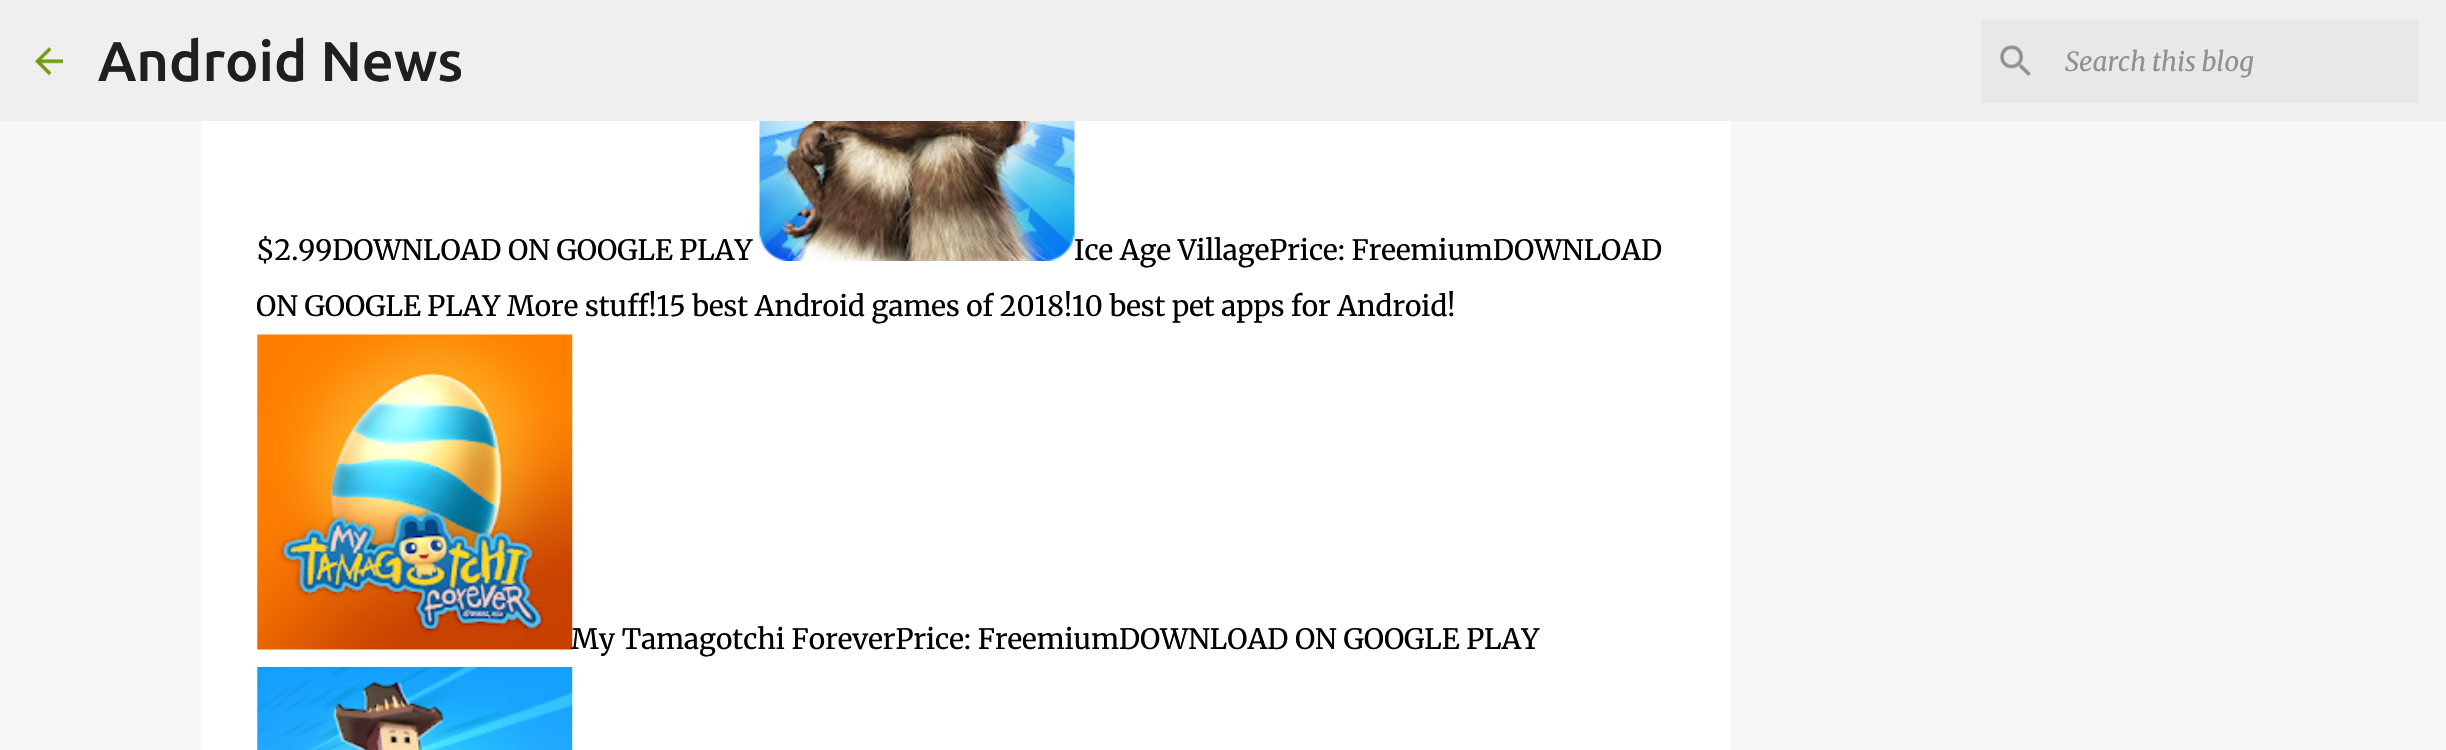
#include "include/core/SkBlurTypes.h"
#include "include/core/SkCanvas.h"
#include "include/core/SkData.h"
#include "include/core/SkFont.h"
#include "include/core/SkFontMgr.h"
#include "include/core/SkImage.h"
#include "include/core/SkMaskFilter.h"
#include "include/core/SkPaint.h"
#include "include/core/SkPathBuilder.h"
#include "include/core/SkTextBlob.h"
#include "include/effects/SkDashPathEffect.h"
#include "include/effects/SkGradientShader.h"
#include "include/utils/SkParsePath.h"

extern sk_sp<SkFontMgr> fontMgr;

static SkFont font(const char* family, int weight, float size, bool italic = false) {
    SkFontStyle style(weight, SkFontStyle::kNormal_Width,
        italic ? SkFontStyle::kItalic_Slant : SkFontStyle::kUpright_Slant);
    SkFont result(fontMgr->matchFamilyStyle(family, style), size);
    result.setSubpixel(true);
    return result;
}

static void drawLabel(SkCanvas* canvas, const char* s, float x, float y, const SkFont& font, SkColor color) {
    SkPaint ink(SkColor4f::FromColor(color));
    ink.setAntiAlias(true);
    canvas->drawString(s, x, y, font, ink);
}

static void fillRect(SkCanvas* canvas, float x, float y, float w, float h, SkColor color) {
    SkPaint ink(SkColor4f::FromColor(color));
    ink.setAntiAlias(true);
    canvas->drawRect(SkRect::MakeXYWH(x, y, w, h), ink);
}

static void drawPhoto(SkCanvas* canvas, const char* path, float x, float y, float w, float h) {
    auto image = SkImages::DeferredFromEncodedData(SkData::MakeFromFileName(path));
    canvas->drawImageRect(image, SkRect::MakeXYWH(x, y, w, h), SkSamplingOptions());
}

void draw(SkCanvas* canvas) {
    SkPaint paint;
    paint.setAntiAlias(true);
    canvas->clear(0xFFF7F7F7);
    fillRect(canvas, 0, 0, 2446, 121, 0xFFEFEFEF);
    drawPhoto(canvas, "assets/img1.png", 35, 47, 28, 29);
    SkFont font1 = font("Ubuntu", 500, 56);
    drawLabel(canvas, "Android News", 98, 81, font1, 0xFF1F1F1F);
    fillRect(canvas, 1981, 19, 438, 84, 0xFFE8E8E8);
    drawPhoto(canvas, "assets/img2.png", 2000, 45, 31, 32);
    SkFont font2 = font("Merriweather", 400, 26.25f, true);
    drawLabel(canvas, "Search this blog", 2065, 71, font2, 0xFF909090);
    fillRect(canvas, 201, 121, 1530, 629, 0xFFFFFFFF);
    SkFont font3 = font("Merriweather", 300, 28);
    drawLabel(canvas, "$2.99DOWNLOAD ON GOOGLE PLAY", 256, 260, font3, 0xFF000000);
    drawPhoto(canvas, "assets/img3.png", 759, 121, 316, 140);
    drawLabel(canvas, "Ice Age VillagePrice: FreemiumDOWNLOAD", 1074, 260, font3, 0xFF000000);
    drawLabel(canvas, "ON GOOGLE PLAY More stuff!15 best Android games of 2018!10 best pet apps for Android!", 256, 316, font3, 0xFF000000);
    drawPhoto(canvas, "assets/img4.png", 257, 334, 316, 316);
    drawLabel(canvas, "My Tamagotchi ForeverPrice: FreemiumDOWNLOAD ON GOOGLE PLAY", 571, 649, font3, 0xFF000000);
    drawPhoto(canvas, "assets/img5.png", 257, 667, 316, 83);
}
